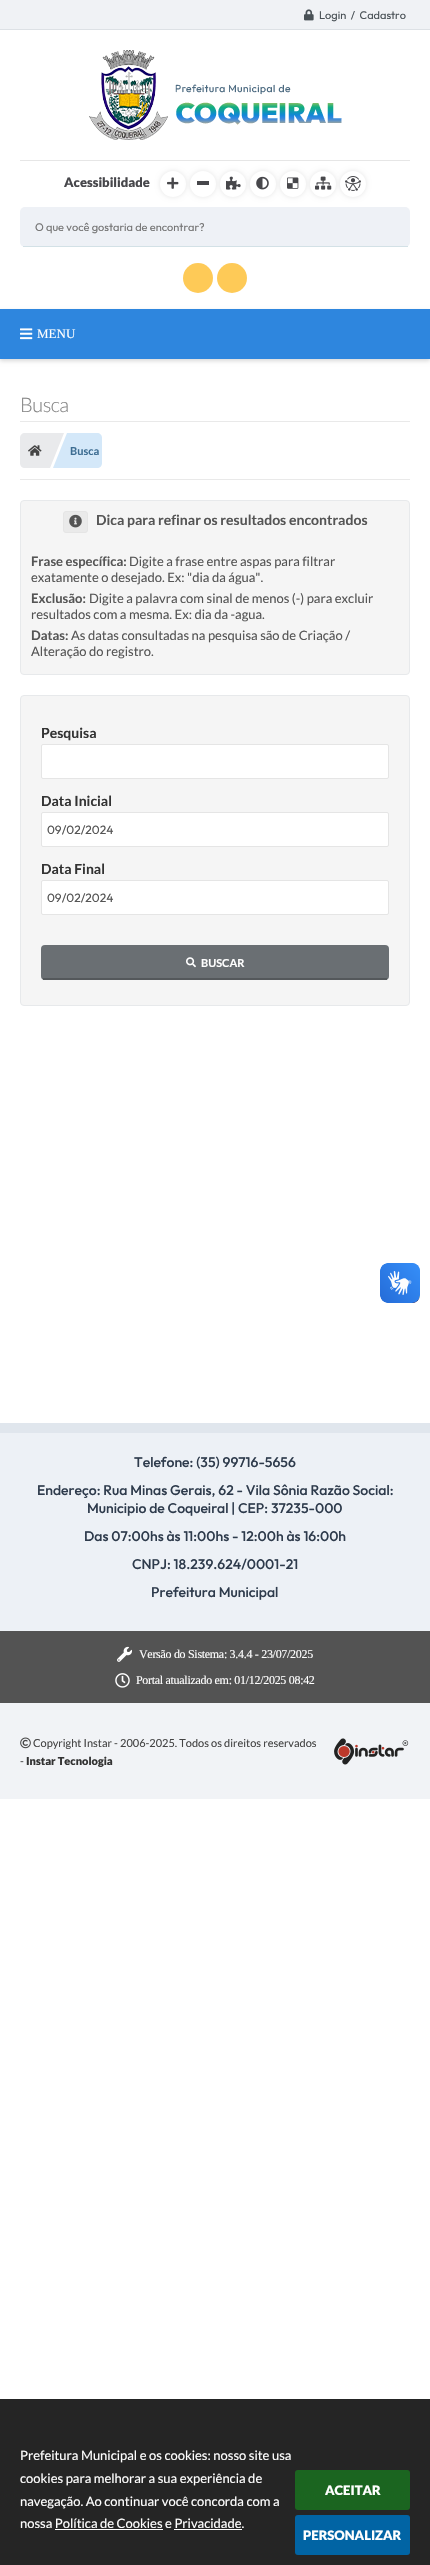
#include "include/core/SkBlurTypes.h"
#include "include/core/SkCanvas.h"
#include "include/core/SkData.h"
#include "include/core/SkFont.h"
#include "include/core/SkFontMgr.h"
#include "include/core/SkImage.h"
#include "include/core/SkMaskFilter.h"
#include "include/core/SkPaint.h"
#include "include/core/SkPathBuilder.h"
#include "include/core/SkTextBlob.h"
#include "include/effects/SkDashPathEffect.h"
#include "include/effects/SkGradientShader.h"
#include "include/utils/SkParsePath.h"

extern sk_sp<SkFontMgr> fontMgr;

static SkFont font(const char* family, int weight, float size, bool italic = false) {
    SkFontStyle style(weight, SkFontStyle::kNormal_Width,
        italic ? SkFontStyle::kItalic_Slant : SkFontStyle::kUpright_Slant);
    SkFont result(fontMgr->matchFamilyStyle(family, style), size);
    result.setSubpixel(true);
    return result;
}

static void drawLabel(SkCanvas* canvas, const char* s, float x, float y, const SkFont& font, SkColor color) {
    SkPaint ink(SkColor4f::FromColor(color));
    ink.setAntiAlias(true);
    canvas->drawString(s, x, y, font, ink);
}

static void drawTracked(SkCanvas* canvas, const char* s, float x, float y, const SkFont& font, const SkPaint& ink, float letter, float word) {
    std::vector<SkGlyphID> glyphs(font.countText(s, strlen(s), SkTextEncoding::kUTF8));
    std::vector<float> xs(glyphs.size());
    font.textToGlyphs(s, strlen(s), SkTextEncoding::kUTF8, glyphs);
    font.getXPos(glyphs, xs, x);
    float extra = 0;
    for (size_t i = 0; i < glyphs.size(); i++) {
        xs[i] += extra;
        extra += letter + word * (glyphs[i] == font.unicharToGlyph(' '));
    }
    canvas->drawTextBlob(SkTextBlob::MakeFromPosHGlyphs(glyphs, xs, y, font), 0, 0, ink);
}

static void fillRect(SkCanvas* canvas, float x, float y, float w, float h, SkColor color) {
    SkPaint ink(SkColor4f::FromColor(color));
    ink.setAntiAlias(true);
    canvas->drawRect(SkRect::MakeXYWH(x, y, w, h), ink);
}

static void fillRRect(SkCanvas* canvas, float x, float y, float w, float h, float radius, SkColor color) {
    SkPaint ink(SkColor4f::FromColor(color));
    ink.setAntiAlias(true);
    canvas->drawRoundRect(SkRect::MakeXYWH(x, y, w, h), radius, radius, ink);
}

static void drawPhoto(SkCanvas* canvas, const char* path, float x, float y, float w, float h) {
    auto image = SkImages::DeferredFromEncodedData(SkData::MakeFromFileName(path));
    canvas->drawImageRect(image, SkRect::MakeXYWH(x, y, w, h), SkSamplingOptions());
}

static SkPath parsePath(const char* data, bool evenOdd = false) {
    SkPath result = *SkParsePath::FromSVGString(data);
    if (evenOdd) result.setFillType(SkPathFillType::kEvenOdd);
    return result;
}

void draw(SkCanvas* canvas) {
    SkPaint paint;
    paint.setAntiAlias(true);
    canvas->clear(0xFFFFFFFF);
    fillRect(canvas, 0, 2399, 430, 166, 0xFF252525);
    fillRect(canvas, 0, 0, 430, 29, 0xFFF0F2F5);
    fillRect(canvas, 0, 29, 430, 1, 0xFFDDE1E5);
    drawPhoto(canvas, "assets/img1.png", 304, 9, 10, 12);
    SkFont font1 = font("Outfit", 400, 11);
    drawLabel(canvas, "Login  /  Cadastro", 319, 19, font1, 0xFF495156);
    drawPhoto(canvas, "assets/img2.png", 380, 1263, 40, 40);
    drawPhoto(canvas, "assets/img3.png", 380, 1263, 40, 40);
    SkFont font2 = font("Lato", 400, 13);
    drawLabel(canvas, "Prefeitura Municipal e os cookies: nosso site usa", 20, 2460, font2, 0xFFFFFFFF);
    drawLabel(canvas, "cookies para melhorar a sua experiência de", 20, 2483, font2, 0xFFFFFFFF);
    drawLabel(canvas, "navegação. Ao continuar você concorda com a", 20, 2506, font2, 0xFFFFFFFF);
    drawLabel(canvas, "nossa Política de Cookies e Privacidade.", 20, 2528, font2, 0xFFFFFFFF);
    fillRect(canvas, 55, 2529, 108, 1, 0xFFFFFFFF);
    fillRect(canvas, 174, 2529, 68, 1, 0xFFFFFFFF);
    fillRRect(canvas, 295, 2470, 115, 40, 3, 0xFF1B6520);
    SkFont font3 = font("Lato", 900, 13);
    drawLabel(canvas, "ACEITAR", 325, 2495, font3, 0xFFFFFFFF);
    fillRRect(canvas, 295, 2515, 115, 40, 3, 0xFF0164A4);
    drawLabel(canvas, "PERSONALIZAR", 303, 2540, font3, 0xFFFFFFFF);
    drawPhoto(canvas, "assets/img4.png", 89, 50, 253, 90);
    fillRect(canvas, 20, 160, 390, 1, 0xFFE6E6E6);
    drawLabel(canvas, "Acessibilidade", 64, 187, font3, 0xFF47474B);
    paint.setColor(0x1A000000);
    paint.setMaskFilter(SkMaskFilter::MakeBlur(kNormal_SkBlurStyle, 2.5f));
    canvas->drawRoundRect(SkRect::MakeXYWH(160, 171, 26, 26), 13, 13, paint);
    paint.setMaskFilter(nullptr);
    paint.setColor(0xFFFFFFFF);
    canvas->drawCircle(173, 184, 13, paint);
    drawPhoto(canvas, "assets/img5.png", 167, 177, 12, 12);
    paint.setColor(0x1A000000);
    paint.setMaskFilter(SkMaskFilter::MakeBlur(kNormal_SkBlurStyle, 2.5f));
    canvas->drawRoundRect(SkRect::MakeXYWH(190, 171, 26, 26), 13, 13, paint);
    paint.setMaskFilter(nullptr);
    paint.setColor(0xFFFFFFFF);
    canvas->drawCircle(203, 184, 13, paint);
    fillRect(canvas, 197, 181, 12, 4, 0xFF47474B);
    paint.setColor(0x1A000000);
    paint.setMaskFilter(SkMaskFilter::MakeBlur(kNormal_SkBlurStyle, 2.5f));
    canvas->drawRoundRect(SkRect::MakeXYWH(220, 171, 26, 26), 13, 13, paint);
    paint.setMaskFilter(nullptr);
    paint.setColor(0xFFFFFFFF);
    canvas->drawCircle(233, 184, 13, paint);
    drawPhoto(canvas, "assets/img6.png", 226, 176, 15, 14);
    paint.setColor(0x1A000000);
    paint.setMaskFilter(SkMaskFilter::MakeBlur(kNormal_SkBlurStyle, 2.5f));
    canvas->drawRoundRect(SkRect::MakeXYWH(250, 171, 26, 26), 13, 13, paint);
    paint.setMaskFilter(nullptr);
    paint.setColor(0xFFFFFFFF);
    canvas->drawCircle(263, 184, 13, paint);
    drawPhoto(canvas, "assets/img7.png", 256, 176, 13, 14);
    paint.setColor(0x1A000000);
    paint.setMaskFilter(SkMaskFilter::MakeBlur(kNormal_SkBlurStyle, 2.5f));
    canvas->drawRoundRect(SkRect::MakeXYWH(280, 171, 26, 26), 13, 13, paint);
    paint.setMaskFilter(nullptr);
    paint.setColor(0xFFFFFFFF);
    canvas->drawCircle(293, 184, 13, paint);
    drawPhoto(canvas, "assets/img8.png", 287, 177, 12, 12);
    paint.setColor(0x1A000000);
    paint.setMaskFilter(SkMaskFilter::MakeBlur(kNormal_SkBlurStyle, 2.5f));
    canvas->drawRoundRect(SkRect::MakeXYWH(310, 171, 26, 26), 13, 13, paint);
    paint.setMaskFilter(nullptr);
    paint.setColor(0xFFFFFFFF);
    canvas->drawCircle(323, 184, 13, paint);
    drawPhoto(canvas, "assets/img9.png", 315, 176, 17, 14);
    paint.setColor(0x1A000000);
    paint.setMaskFilter(SkMaskFilter::MakeBlur(kNormal_SkBlurStyle, 2.5f));
    canvas->drawRoundRect(SkRect::MakeXYWH(340, 171, 26, 26), 13, 13, paint);
    paint.setMaskFilter(nullptr);
    paint.setColor(0xFFFFFFFF);
    canvas->drawCircle(353, 184, 13, paint);
    drawPhoto(canvas, "assets/img10.png", 345, 176, 16, 15);
    fillRRect(canvas, 20, 207, 390, 40, 5, 0xFFEEF1F6);
    fillRect(canvas, 23, 246, 385, 1, 0xFFD3E1E6);
    drawLabel(canvas, "O que você gostaria de encontrar?", 35, 231, font1, 0xFF757575);
    paint.setColor(0xFFFECA57);
    canvas->drawCircle(198, 278, 15, paint);
    canvas->drawCircle(232, 278, 15, paint);
    paint.setColor(0x26000000);
    paint.setMaskFilter(SkMaskFilter::MakeBlur(kNormal_SkBlurStyle, 2));
    canvas->drawRect(SkRect::MakeXYWH(0, 311, 430, 50), paint);
    paint.setMaskFilter(nullptr);
    fillRect(canvas, 0, 309, 430, 50, 0xFF2E86DE);
    drawPhoto(canvas, "assets/img11.png", 20, 328, 13, 12);
    SkFont font4 = font("Liberation Serif", 400, 13);
    drawLabel(canvas, "MENU", 37, 338, font4, 0xFFFFFFFF);
    SkFont font5 = font("Lato", 300, 20);
    paint.setColor(0xFF868686);
    drawTracked(canvas, "Busca", 20, 412, font5, paint, -0.5f, 0);
    fillRect(canvas, 20, 421, 390, 1, 0xFFE9E9E9);
    fillRect(canvas, 20, 479, 390, 1, 0xFFE9E9E9);
    paint.setColor(0xFFE9EAEC);
    canvas->drawPath(parsePath("M25 433H50V468H25C22 468 20 466 20 463V438C20 435 22 433 25 433Z"), paint);
    drawPhoto(canvas, "assets/img12.png", 28, 445, 14, 11);
    canvas->drawPath(parsePath("M50 433H64L50 468Z"), paint);
    paint.setColor(0xFFD4E8F9);
    canvas->drawPath(parsePath("M67 433H97C100 433 102 435 102 438V463C102 466 100 468 97 468H67Z"), paint);
    canvas->drawPath(parsePath("M67 468H53L67 433Z"), paint);
    SkFont font6 = font("Lato", 700, 11);
    drawLabel(canvas, "Busca", 70, 455, font6, 0xFF3D6D92);
    paint.setColor(0xFFF5F5F5);
    canvas->drawRoundRect(SkRect::MakeXYWH(20.5f, 500.5f, 389, 174), 3.5f, 3.5f, paint);
    paint.setStroke(true);
    paint.setStrokeWidth(1);
    paint.setColor(0xFFE7E9EB);
    canvas->drawRoundRect(SkRect::MakeXYWH(20.5f, 500.5f, 389, 174), 3.5f, 3.5f, paint);
    paint.setStroke(false);
    paint.setColor(0xFFEAEAEA);
    canvas->drawRoundRect(SkRect::MakeXYWH(63.5f, 511.5f, 24, 21), 2.5f, 2.5f, paint);
    paint.setStroke(true);
    paint.setColor(0xFFE5E5E5);
    canvas->drawRoundRect(SkRect::MakeXYWH(63.5f, 511.5f, 24, 21), 2.5f, 2.5f, paint);
    drawPhoto(canvas, "assets/img13.png", 69, 514, 13, 14);
    SkFont font7 = font("Lato", 700, 14);
    drawLabel(canvas, "Dica para refinar os resultados encontrados", 96, 525, font7, 0xFF555555);
    SkFont font8 = font("Lato", 700, 13);
    drawLabel(canvas, "Frase específica:", 31, 566, font8, 0xFF555555);
    drawLabel(canvas, "Digite a frase entre aspas para filtrar", 129, 566, font2, 0xFF555555);
    drawLabel(canvas, "exatamente o desejado. Ex: \"dia da água\".", 31, 582, font2, 0xFF555555);
    drawLabel(canvas, "Exclusão:", 31, 603, font8, 0xFF555555);
    drawLabel(canvas, "Digite a palavra com sinal de menos (-) para excluir", 89, 603, font2, 0xFF555555);
    drawLabel(canvas, "resultados com a mesma. Ex: dia da -agua.", 31, 619, font2, 0xFF555555);
    drawLabel(canvas, "Datas:", 31, 640, font8, 0xFF555555);
    drawLabel(canvas, "As datas consultadas na pesquisa são de Criação /", 71, 640, font2, 0xFF555555);
    drawLabel(canvas, "Alteração do registro.", 31, 656, font2, 0xFF555555);
    paint.setStroke(false);
    paint.setColor(0xFFF5F5F5);
    canvas->drawRoundRect(SkRect::MakeXYWH(20.5f, 695.5f, 389, 310), 3.5f, 3.5f, paint);
    paint.setStroke(true);
    paint.setColor(0xFFE7E9EB);
    canvas->drawRoundRect(SkRect::MakeXYWH(20.5f, 695.5f, 389, 310), 3.5f, 3.5f, paint);
    drawLabel(canvas, "Pesquisa", 41, 738, font7, 0xFF333333);
    paint.setStroke(false);
    paint.setColor(0xFFFFFFFF);
    canvas->drawRoundRect(SkRect::MakeXYWH(41.5f, 744.5f, 347, 34), 1.5f, 1.5f, paint);
    paint.setStroke(true);
    paint.setColor(0xFFE5E5E5);
    canvas->drawRoundRect(SkRect::MakeXYWH(41.5f, 744.5f, 347, 34), 1.5f, 1.5f, paint);
    drawLabel(canvas, "Data Inicial", 41, 806, font7, 0xFF333333);
    paint.setStroke(false);
    paint.setColor(0xFFFFFFFF);
    canvas->drawRoundRect(SkRect::MakeXYWH(41.5f, 812.5f, 347, 34), 1.5f, 1.5f, paint);
    paint.setStroke(true);
    paint.setColor(0xFFE5E5E5);
    canvas->drawRoundRect(SkRect::MakeXYWH(41.5f, 812.5f, 347, 34), 1.5f, 1.5f, paint);
    SkFont font9 = font("Outfit", 400, 12);
    drawLabel(canvas, "09/02/2024", 47, 834, font9, 0xFF555555);
    drawLabel(canvas, "Data Final", 41, 874, font7, 0xFF333333);
    paint.setStroke(false);
    paint.setColor(0xFFFFFFFF);
    canvas->drawRoundRect(SkRect::MakeXYWH(41.5f, 880.5f, 347, 34), 1.5f, 1.5f, paint);
    paint.setStroke(true);
    paint.setColor(0xFFE5E5E5);
    canvas->drawRoundRect(SkRect::MakeXYWH(41.5f, 880.5f, 347, 34), 1.5f, 1.5f, paint);
    drawLabel(canvas, "09/02/2024", 47, 902, font9, 0xFF555555);
    fillRRect(canvas, 41, 945, 348, 35, 4, 0xFF6A6F73);
    fillRect(canvas, 43, 978, 344, 2, 0xFF54585B);
    drawPhoto(canvas, "assets/img14.png", 186, 957, 10, 11);
    drawLabel(canvas, "BUSCAR", 201, 967, font6, 0xFFFFFFFF);
    fillRect(canvas, 0, 1423, 430, 10, 0xFFE0E6ED);
    fillRect(canvas, 0, 1433, 430, 198, 0xFFEDF1F6);
    SkFont font10 = font("Outfit", 500, 14);
    drawLabel(canvas, "Telefone: (35) 99716-5656", 134, 1467, font10, 0xFF2E3B4C);
    drawLabel(canvas, "Endereço: Rua Minas Gerais, 62 - Vila Sônia Razão Social:", 37, 1495, font10, 0xFF2E3B4C);
    drawLabel(canvas, "Municipio de Coqueiral | CEP: 37235-000", 87, 1513, font10, 0xFF2E3B4C);
    drawLabel(canvas, "Das 07:00hs às 11:00hs - 12:00h às 16:00h", 84, 1541, font10, 0xFF2E3B4C);
    drawLabel(canvas, "CNPJ: 18.239.624/0001-21", 132, 1569, font10, 0xFF2E3B4C);
    drawLabel(canvas, "Prefeitura Municipal", 151, 1597, font10, 0xFF2E3B4C);
    fillRect(canvas, 0, 1631, 430, 72, 0xFF535353);
    drawPhoto(canvas, "assets/img15.png", 117, 1646, 15, 16);
    SkFont font11 = font("Liberation Serif", 400, 12);
    paint.setStroke(false);
    paint.setColor(0xFFFFFFFF);
    drawTracked(canvas, "Versão do Sistema: 3.4.4 - 23/07/2025", 139, 1658, font11, paint, -0.3f, 0);
    drawPhoto(canvas, "assets/img16.png", 115, 1673, 15, 15);
    drawTracked(canvas, "Portal atualizado em: 01/12/2025 08:42", 136, 1684, font11, paint, -0.3f, 0);
    fillRect(canvas, 0, 1703, 430, 96, 0xFFF1F3F6);
    drawPhoto(canvas, "assets/img17.png", 20, 1737, 11, 12);
    SkFont font12 = font("Lato", 400, 11);
    drawLabel(canvas, "Copyright Instar - 2006-2025. Todos os direitos reservados", 33, 1747, font12, 0xFF444444);
    drawLabel(canvas, "-", 20, 1765, font12, 0xFF444444);
    SkFont font13 = font("Lato", 900, 11);
    drawLabel(canvas, "Instar Tecnologia", 26, 1765, font13, 0xFF333333);
    drawPhoto(canvas, "assets/img18.png", 334, 1738, 75, 27);
}
